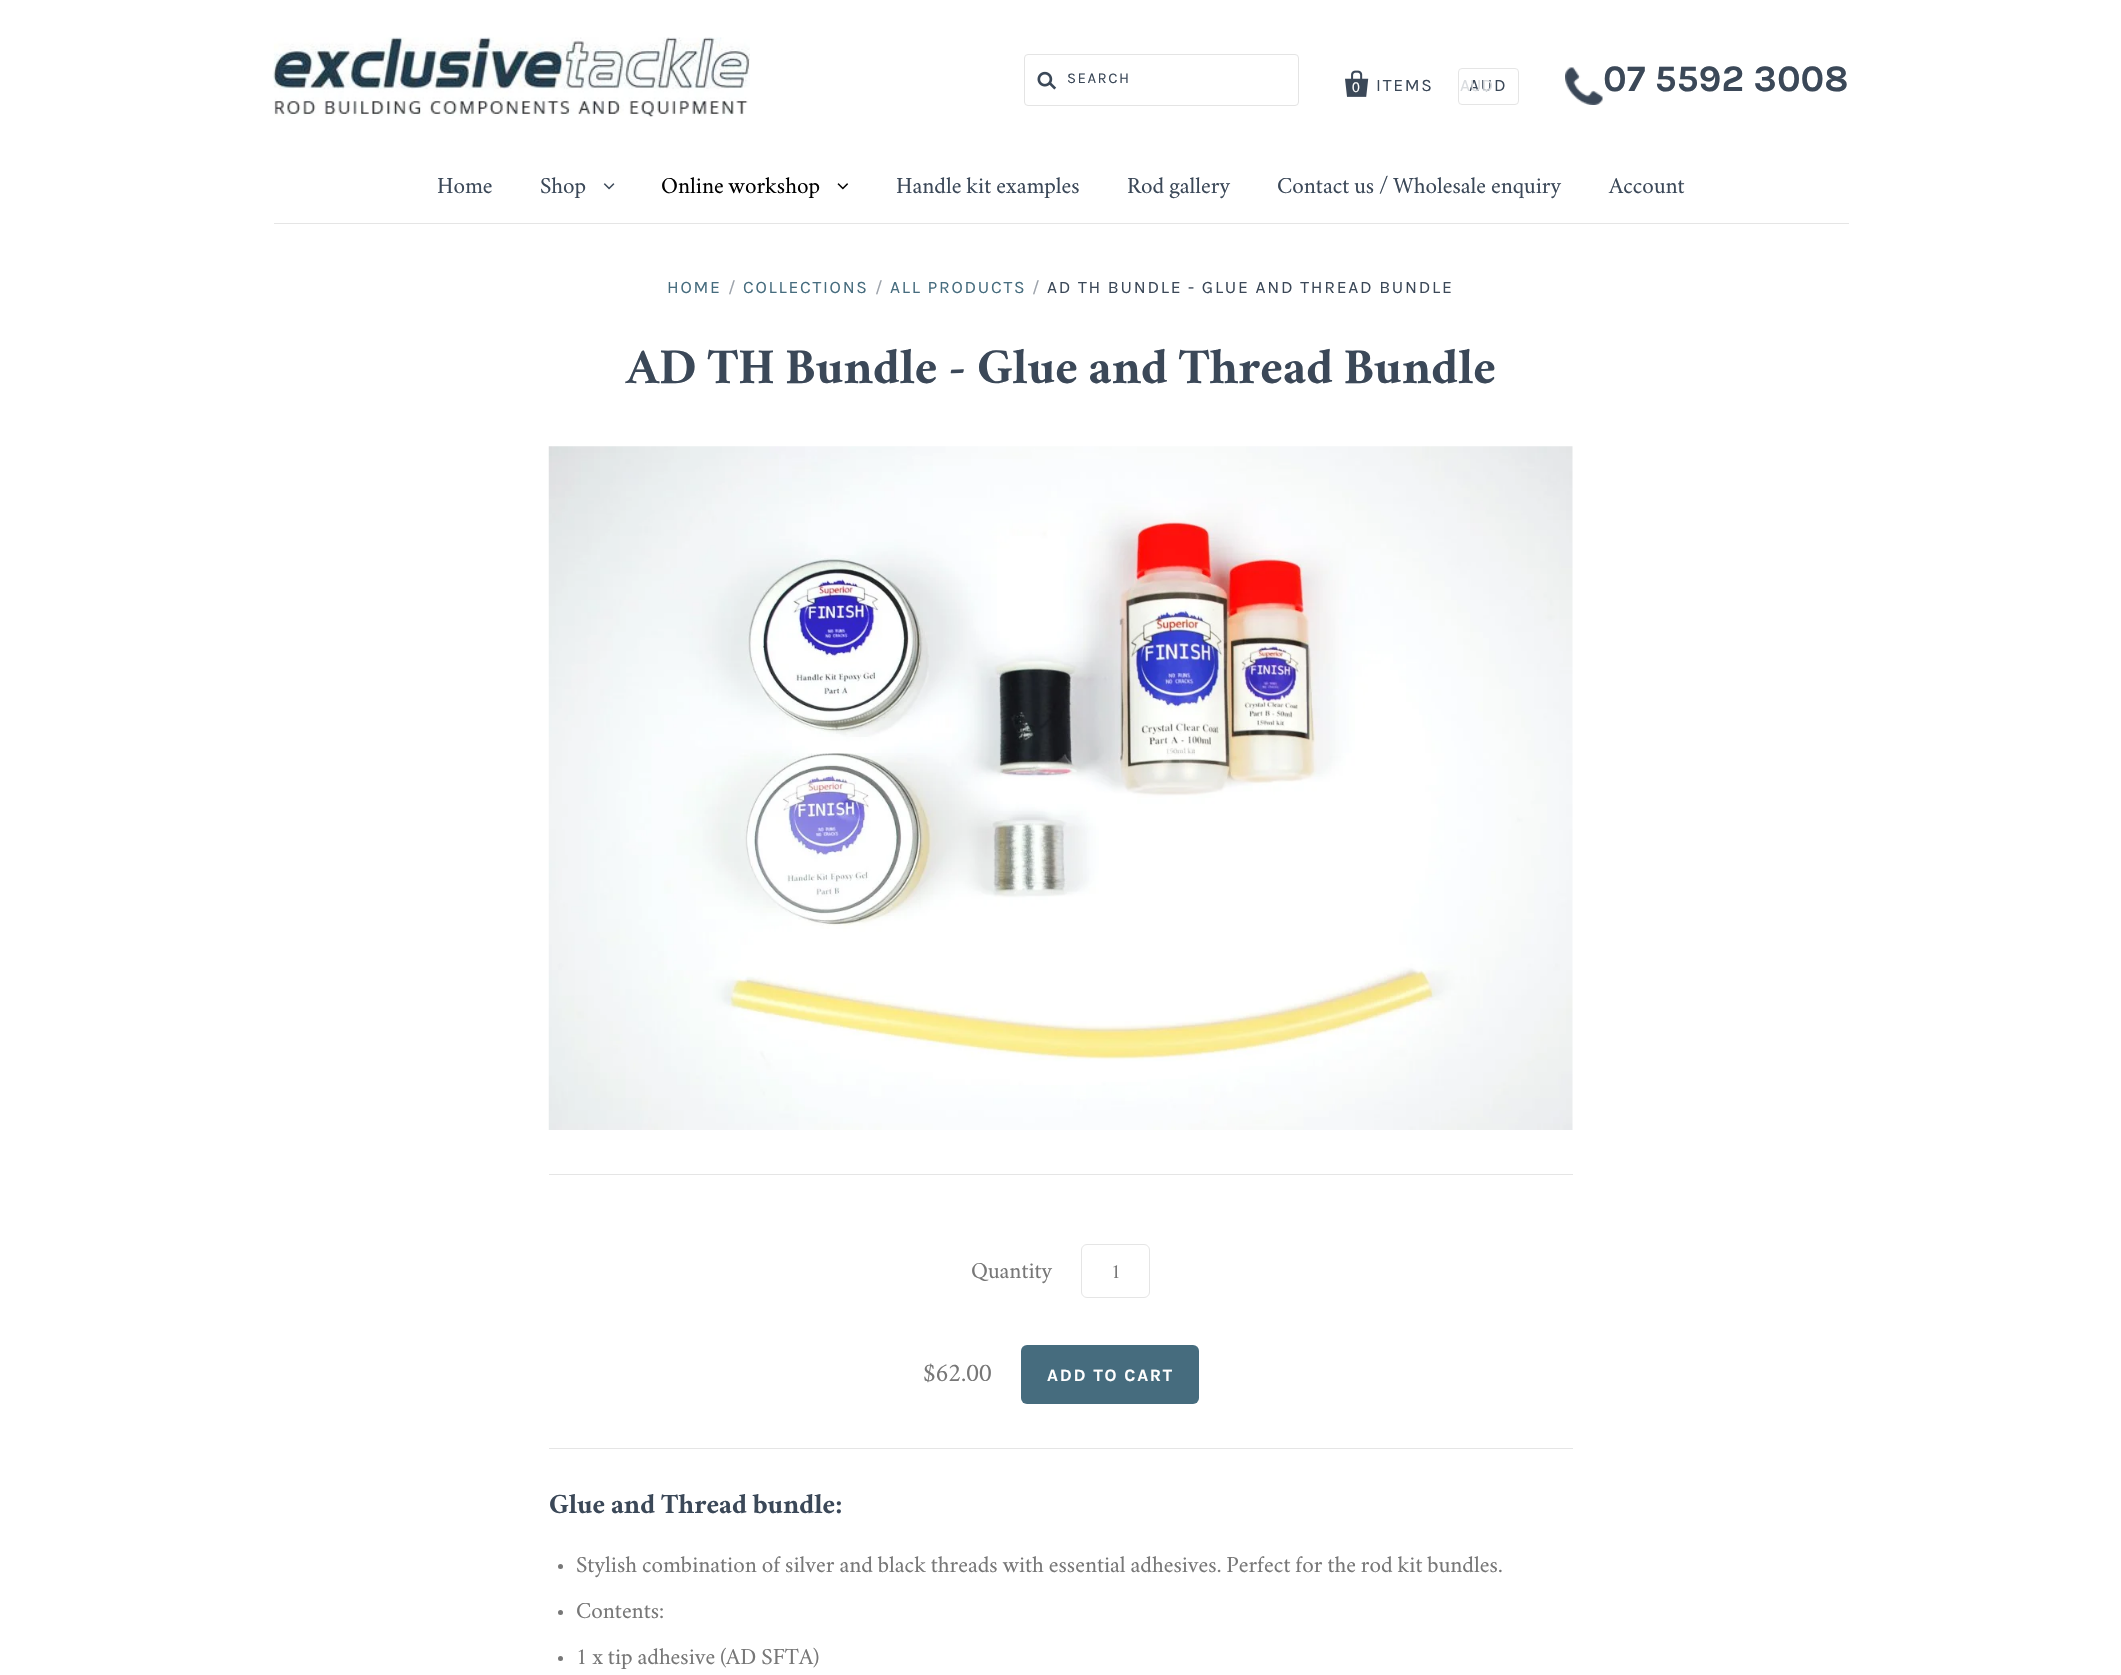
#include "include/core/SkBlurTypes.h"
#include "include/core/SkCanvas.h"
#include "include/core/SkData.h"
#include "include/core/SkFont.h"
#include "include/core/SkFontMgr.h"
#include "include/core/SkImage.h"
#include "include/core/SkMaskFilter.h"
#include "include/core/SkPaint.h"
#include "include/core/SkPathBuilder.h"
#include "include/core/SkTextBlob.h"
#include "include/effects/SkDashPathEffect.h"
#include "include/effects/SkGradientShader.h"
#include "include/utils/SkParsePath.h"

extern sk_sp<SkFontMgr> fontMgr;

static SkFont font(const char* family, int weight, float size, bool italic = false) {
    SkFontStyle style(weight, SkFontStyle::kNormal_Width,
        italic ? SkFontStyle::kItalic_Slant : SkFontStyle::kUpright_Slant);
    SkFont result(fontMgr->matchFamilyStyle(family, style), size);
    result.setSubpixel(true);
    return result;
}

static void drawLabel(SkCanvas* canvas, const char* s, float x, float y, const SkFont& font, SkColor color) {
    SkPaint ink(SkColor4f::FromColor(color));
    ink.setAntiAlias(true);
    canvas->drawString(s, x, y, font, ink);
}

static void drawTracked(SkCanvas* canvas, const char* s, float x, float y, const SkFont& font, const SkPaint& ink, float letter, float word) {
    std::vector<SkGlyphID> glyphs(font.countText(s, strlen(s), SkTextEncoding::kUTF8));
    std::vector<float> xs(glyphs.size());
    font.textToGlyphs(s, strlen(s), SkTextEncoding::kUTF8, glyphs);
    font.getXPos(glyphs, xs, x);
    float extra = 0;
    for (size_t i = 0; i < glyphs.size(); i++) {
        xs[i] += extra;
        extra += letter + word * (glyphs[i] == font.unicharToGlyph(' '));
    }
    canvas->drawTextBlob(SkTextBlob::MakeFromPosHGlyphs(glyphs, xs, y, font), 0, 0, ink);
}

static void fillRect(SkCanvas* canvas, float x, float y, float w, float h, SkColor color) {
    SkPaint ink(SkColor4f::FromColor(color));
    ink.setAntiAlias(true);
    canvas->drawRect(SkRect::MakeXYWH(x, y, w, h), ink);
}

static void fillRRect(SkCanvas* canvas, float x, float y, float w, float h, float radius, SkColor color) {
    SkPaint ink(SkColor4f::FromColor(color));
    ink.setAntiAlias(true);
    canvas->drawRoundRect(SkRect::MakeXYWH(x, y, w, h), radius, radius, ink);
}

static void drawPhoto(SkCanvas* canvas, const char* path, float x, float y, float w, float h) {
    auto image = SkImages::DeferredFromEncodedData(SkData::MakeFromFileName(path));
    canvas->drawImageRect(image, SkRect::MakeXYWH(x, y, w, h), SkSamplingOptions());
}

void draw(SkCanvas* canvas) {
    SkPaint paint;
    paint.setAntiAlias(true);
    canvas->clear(0xFFFFFFFF);
    fillRect(canvas, 274, 223, 1575, 1, 0xFFE5E5E5);
    drawPhoto(canvas, "assets/img1.png", 273, 37, 477, 80);
    paint.setStroke(true);
    paint.setStrokeWidth(1);
    paint.setColor(0xFFE4E4E4);
    canvas->drawRoundRect(SkRect::MakeXYWH(1024.5f, 54.5f, 274, 51), 3.5f, 3.5f, paint);
    drawPhoto(canvas, "assets/img2.png", 1037, 71, 20, 19);
    SkFont font1 = font("Karla", 400, 15);
    paint.setStroke(false);
    paint.setColor(0xFF3B4858);
    drawTracked(canvas, "SEARCH", 1067, 83, font1, paint, 1.5f, 0);
    drawPhoto(canvas, "assets/img3.png", 1345, 70, 24, 27);
    SkFont font2 = font("Karla", 400, 17.5f);
    drawTracked(canvas, "ITEMS", 1376, 91, font2, paint, 1.75f, 0);
    SkFont font3 = font("Liberation Sans", 400, 14);
    paint.setColor(0xFFFFFFFF);
    drawTracked(canvas, "0", 1352, 92, font3, paint, 1.75f, 0);
    paint.setStroke(true);
    paint.setColor(0xFFE5E5E5);
    canvas->drawRoundRect(SkRect::MakeXYWH(1458.5f, 68.5f, 60, 36), 3.5f, 3.5f, paint);
    paint.setStroke(false);
    paint.setColor(0xFF3B4858);
    drawTracked(canvas, "AUD", 1469, 91, font2, paint, 1.75f, 0);
    drawLabel(canvas, "AUD", 1460, 91, font2, 0xFFD9DCDF);
    drawPhoto(canvas, "assets/img4.png", 1565, 67, 38, 38);
    SkFont font4 = font("Karla", 700, 37.5f);
    drawLabel(canvas, "07 5592 3008", 1603, 91, font4, 0xFF3B4858);
    SkFont font5 = font("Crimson", 400, 20);
    drawLabel(canvas, "Home", 437, 193, font5, 0xFF3B4858);
    drawLabel(canvas, "Shop", 540, 193, font5, 0xFF3B4858);
    drawPhoto(canvas, "assets/img5.png", 603, 183, 12, 7);
    drawLabel(canvas, "Online workshop", 661, 193, font5, 0xFF000000);
    drawPhoto(canvas, "assets/img6.png", 837, 183, 12, 7);
    drawLabel(canvas, "Handle kit examples", 896, 193, font5, 0xFF3B4858);
    drawLabel(canvas, "Rod gallery", 1127, 193, font5, 0xFF3B4858);
    drawLabel(canvas, "Contact us / Wholesale enquiry", 1277, 193, font5, 0xFF3B4858);
    drawLabel(canvas, "Account", 1609, 193, font5, 0xFF3B4858);
    paint.setColor(0xFF466C7E);
    drawTracked(canvas, "HOME", 667, 293, font2, paint, 1.75f, 0);
    paint.setColor(0xFF9DA3AB);
    drawTracked(canvas, "/", 728, 293, font2, paint, 1.75f, 0);
    paint.setColor(0xFF466C7E);
    drawTracked(canvas, "COLLECTIONS", 743, 293, font2, paint, 1.75f, 0);
    paint.setColor(0xFF9DA3AB);
    drawTracked(canvas, "/", 875, 293, font2, paint, 1.75f, 0);
    paint.setColor(0xFF466C7E);
    drawTracked(canvas, "ALL PRODUCTS", 890, 293, font2, paint, 1.75f, 0);
    paint.setColor(0xFF9DA3AB);
    drawTracked(canvas, "/", 1032, 293, font2, paint, 1.75f, 0);
    paint.setColor(0xFF3B4858);
    drawTracked(canvas, "AD TH BUNDLE - GLUE AND THREAD BUNDLE", 1047, 293, font2, paint, 1.75f, 0);
    SkFont font6 = font("Crimson", 700, 45);
    drawLabel(canvas, "AD TH Bundle - Glue and Thread Bundle", 626, 383, font6, 0xFF3B4858);
    drawPhoto(canvas, "assets/img7.png", 548, 446, 1025, 684);
    fillRect(canvas, 549, 1174, 1024, 1, 0xFFE5E5E5);
    drawLabel(canvas, "Quantity", 971, 1278, font5, 0xFF777777);
    paint.setStroke(true);
    paint.setColor(0xFFE5E5E5);
    canvas->drawRoundRect(SkRect::MakeXYWH(1081.5f, 1244.5f, 68, 53), 5.5f, 5.5f, paint);
    SkFont font7 = font("Crimson", 400, 17.5f);
    drawLabel(canvas, "1", 1111, 1278, font7, 0xFF777777);
    SkFont font8 = font("Crimson", 400, 22.5f);
    drawLabel(canvas, "$62.00", 923, 1381, font8, 0xFF777777);
    fillRRect(canvas, 1021, 1345, 178, 59, 6, 0xFF466C7E);
    SkFont font9 = font("Karla", 700, 17.5f);
    paint.setStroke(false);
    paint.setColor(0xFFFFFFFF);
    drawTracked(canvas, "ADD TO CART", 1047, 1381, font9, paint, 1.75f, 0);
    fillRect(canvas, 549, 1448, 1024, 1, 0xFFE5E5E5);
    SkFont font10 = font("Crimson", 700, 25);
    drawLabel(canvas, "Glue and Thread bundle:", 549, 1513, font10, 0xFF3B4858);
    paint.setColor(0xFF777777);
    canvas->drawCircle(560.5f, 1566.5f, 2.5f, paint);
    drawLabel(canvas, "Stylish combination of silver and black threads with essential adhesives. Perfect for the rod kit bundles.", 576, 1572, font5, 0xFF777777);
    canvas->drawCircle(560.5f, 1612.5f, 2.5f, paint);
    drawLabel(canvas, "Contents:", 576, 1618, font5, 0xFF777777);
    canvas->drawCircle(560.5f, 1658.5f, 2.5f, paint);
    drawLabel(canvas, "1 x tip adhesive (AD SFTA)", 576, 1664, font5, 0xFF777777);
}
